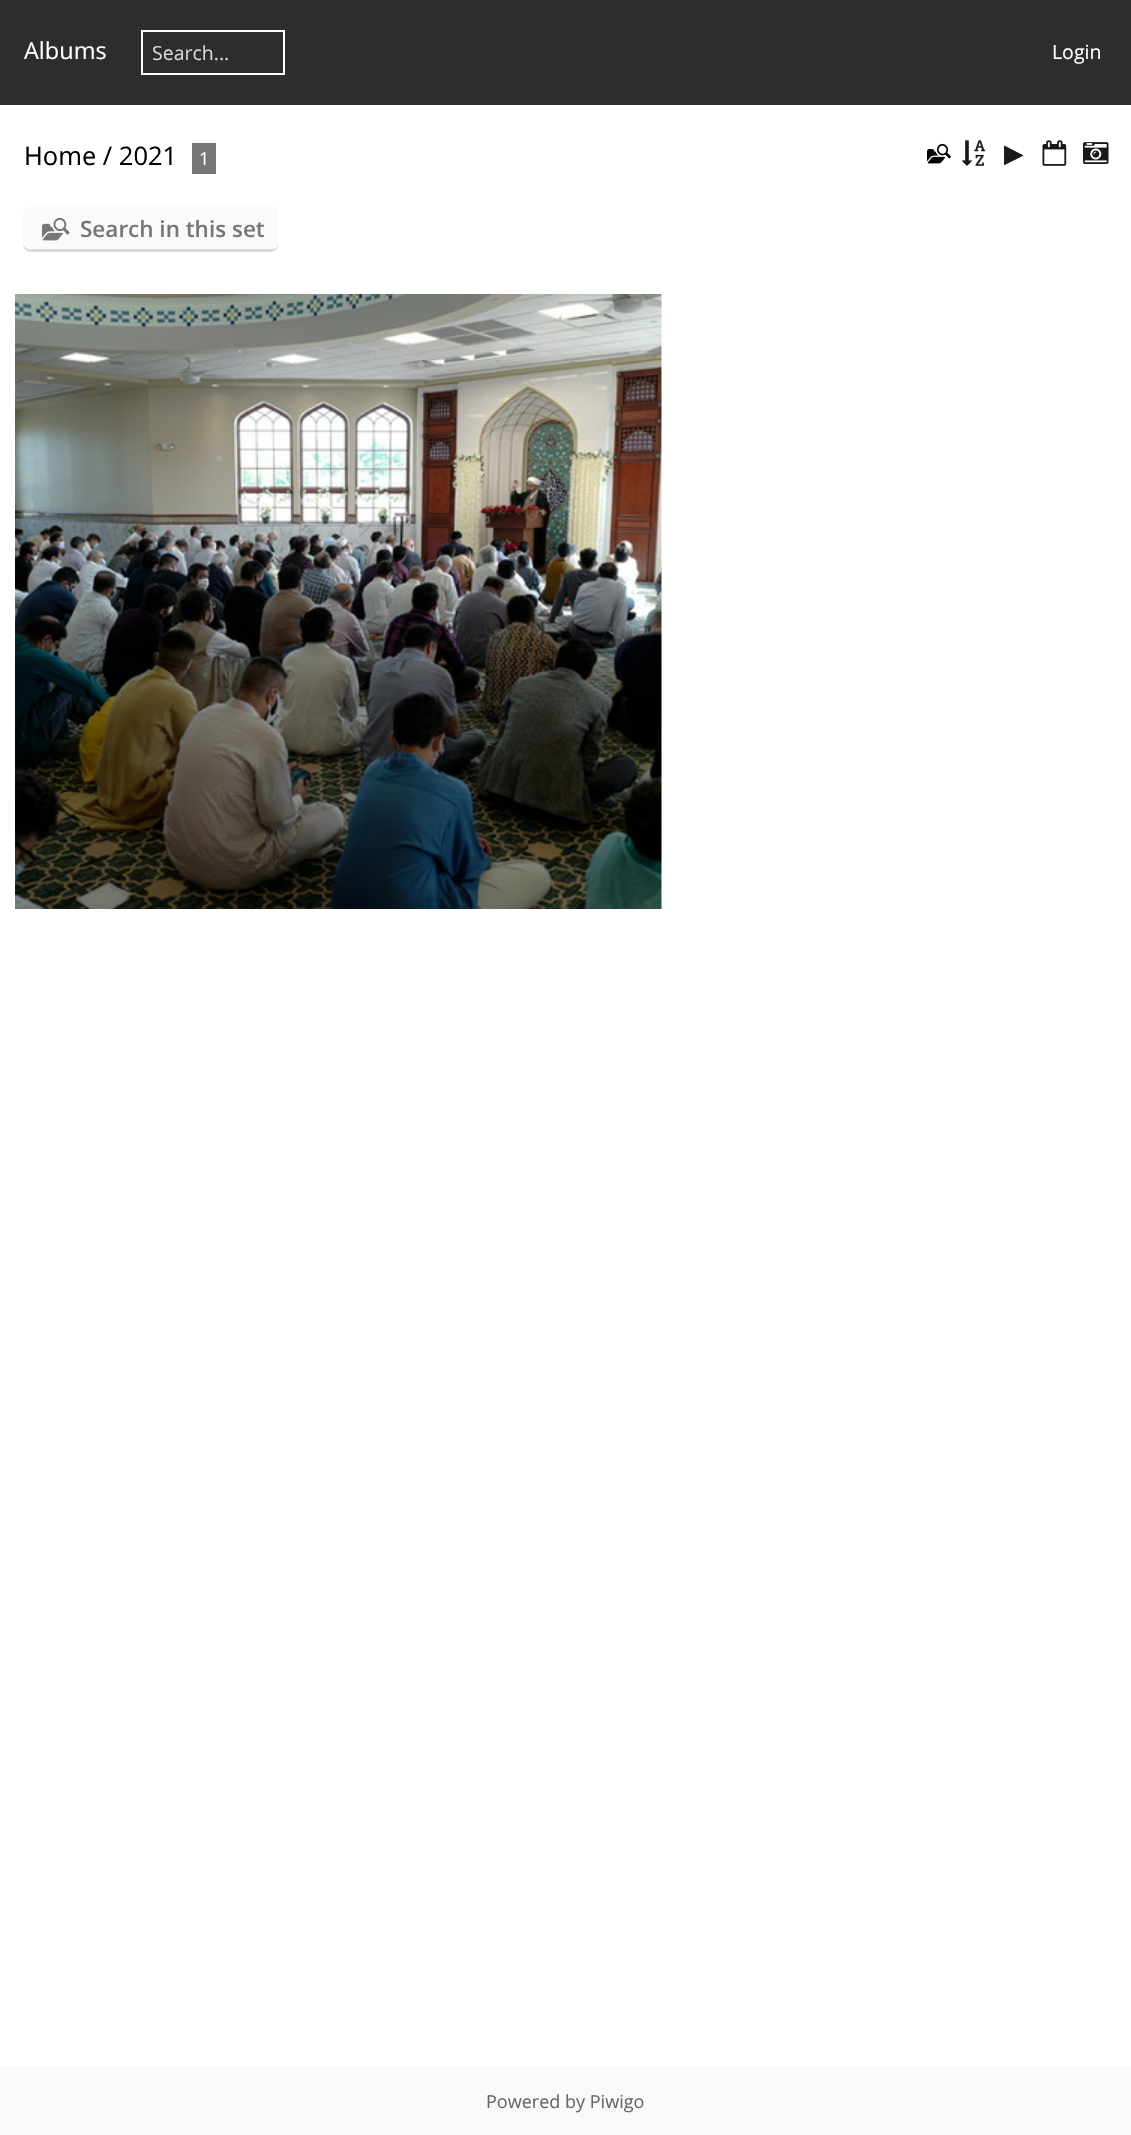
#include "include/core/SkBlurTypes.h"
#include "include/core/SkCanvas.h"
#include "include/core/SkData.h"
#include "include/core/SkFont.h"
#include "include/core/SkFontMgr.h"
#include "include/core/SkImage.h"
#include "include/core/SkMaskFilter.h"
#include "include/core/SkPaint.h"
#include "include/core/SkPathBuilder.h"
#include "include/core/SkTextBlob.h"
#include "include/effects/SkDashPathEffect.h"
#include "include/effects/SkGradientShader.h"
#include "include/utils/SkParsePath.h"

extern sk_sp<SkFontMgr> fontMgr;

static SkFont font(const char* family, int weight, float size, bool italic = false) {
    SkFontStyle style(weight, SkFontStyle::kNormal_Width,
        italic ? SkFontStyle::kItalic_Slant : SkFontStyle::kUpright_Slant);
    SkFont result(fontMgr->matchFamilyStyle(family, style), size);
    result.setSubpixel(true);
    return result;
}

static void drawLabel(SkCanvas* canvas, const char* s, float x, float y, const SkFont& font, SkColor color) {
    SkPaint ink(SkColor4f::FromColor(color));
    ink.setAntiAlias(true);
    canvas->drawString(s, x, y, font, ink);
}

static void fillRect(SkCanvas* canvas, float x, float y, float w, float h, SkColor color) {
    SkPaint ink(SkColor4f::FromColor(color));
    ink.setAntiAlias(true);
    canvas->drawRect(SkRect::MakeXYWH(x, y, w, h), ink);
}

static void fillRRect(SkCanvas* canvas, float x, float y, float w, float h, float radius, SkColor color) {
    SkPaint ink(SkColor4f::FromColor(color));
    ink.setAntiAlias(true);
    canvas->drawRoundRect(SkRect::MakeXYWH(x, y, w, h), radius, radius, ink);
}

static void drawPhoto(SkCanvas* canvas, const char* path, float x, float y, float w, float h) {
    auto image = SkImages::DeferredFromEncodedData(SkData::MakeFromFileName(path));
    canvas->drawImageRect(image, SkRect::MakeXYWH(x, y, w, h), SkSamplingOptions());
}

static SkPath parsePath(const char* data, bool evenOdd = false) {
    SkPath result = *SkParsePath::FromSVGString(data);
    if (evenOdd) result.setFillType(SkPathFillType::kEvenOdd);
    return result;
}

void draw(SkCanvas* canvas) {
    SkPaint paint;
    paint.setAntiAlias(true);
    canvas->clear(0xFFFFFFFF);
    fillRect(canvas, 0, 0, 1131, 105, 0xFF2D2D2D);
    SkFont font1 = font("Open Sans", 400, 23.5f);
    drawLabel(canvas, "Albums", 24, 59, font1, 0xFFFFFFFF);
    paint.setStroke(true);
    paint.setStrokeWidth(2);
    paint.setColor(0xFFFFFFFF);
    canvas->drawRect(SkRect::MakeXYWH(142, 31, 142, 43), paint);
    SkFont font2 = font("Open Sans", 400, 19.5f);
    drawLabel(canvas, "Search...", 152, 60, font2, 0xFFD6D6D6);
    drawLabel(canvas, "Login", 1052, 59, font2, 0xFFFFFFFF);
    SkFont font3 = font("Open Sans", 400, 25.5f);
    drawLabel(canvas, "Home / 2021", 24, 165, font3, 0xFF000000);
    fillRect(canvas, 192, 143, 24, 31, 0xFF777777);
    SkFont font4 = font("Open Sans", 400, 18);
    drawLabel(canvas, "1", 199, 165, font4, 0xFFFFFFFF);
    drawPhoto(canvas, "assets/img1.png", 927, 143, 24, 21);
    drawPhoto(canvas, "assets/img2.png", 962, 140, 24, 26);
    SkFont font5 = font("DejaVu Sans", 400, 25.5f);
    drawLabel(canvas, "▶", 1004, 162, font5, 0xFF1A1A1A);
    drawPhoto(canvas, "assets/img3.png", 1042, 140, 25, 26);
    drawPhoto(canvas, "assets/img4.png", 1083, 142, 26, 22);
    paint.setStroke(false);
    paint.setColor(0xFFDBDBDB);
    canvas->drawPath(parsePath("M23 244C23 249 27 252 31 252H271C275 252 279 248 279 244V242C279 246 276 249 272 249H30C27 249 24 247 23 244Z"), paint);
    fillRRect(canvas, 23, 207, 256, 42, 8, 0xFFFAFAFA);
    drawPhoto(canvas, "assets/img5.png", 42, 217, 28, 24);
    SkFont font6 = font("Open Sans", 600, 22.5f);
    drawLabel(canvas, "Search in this set", 80, 237, font6, 0xFF777777);
    drawPhoto(canvas, "assets/img6.png", 15, 294, 647, 615);
    fillRect(canvas, 0, 2066, 1131, 69, 0xFFF9F9F9);
    drawLabel(canvas, "Powered by Piwigo", 486, 2108, font4, 0xFF666666);
}
